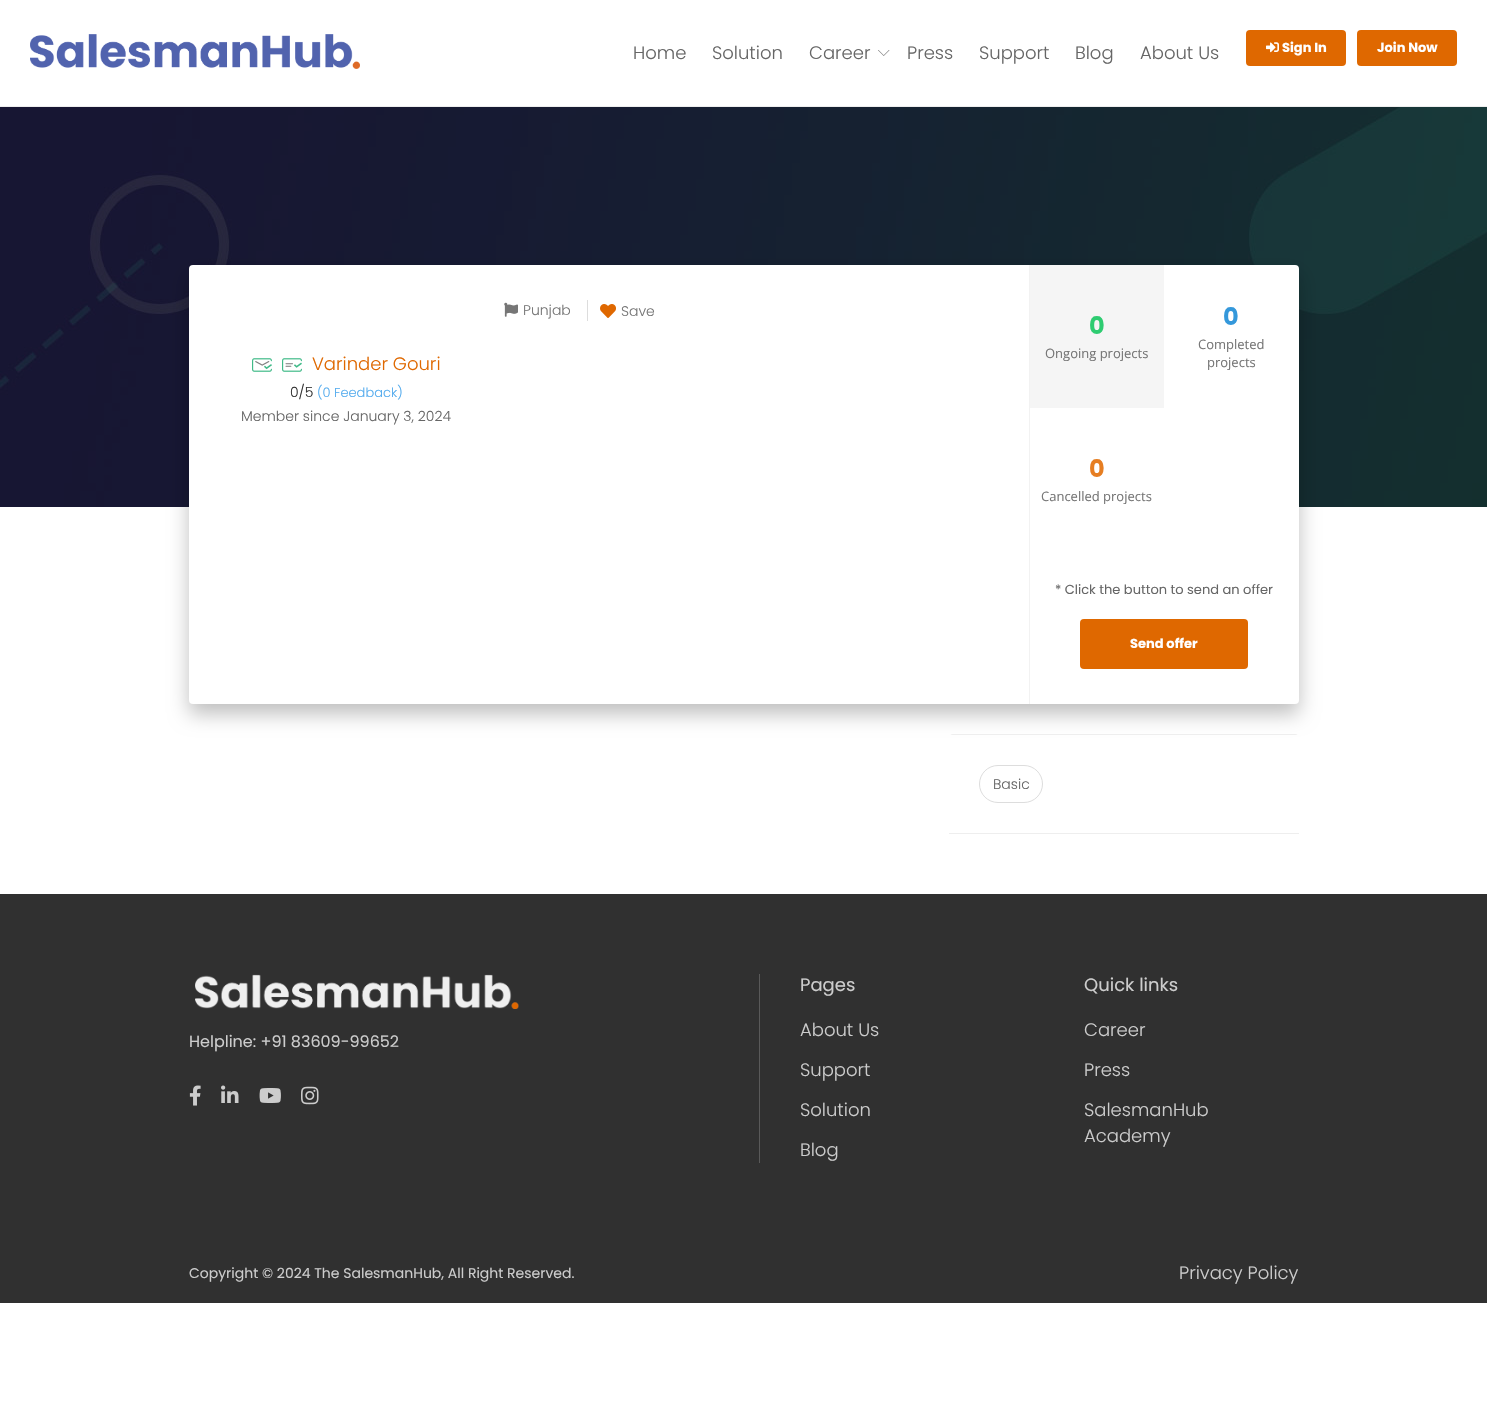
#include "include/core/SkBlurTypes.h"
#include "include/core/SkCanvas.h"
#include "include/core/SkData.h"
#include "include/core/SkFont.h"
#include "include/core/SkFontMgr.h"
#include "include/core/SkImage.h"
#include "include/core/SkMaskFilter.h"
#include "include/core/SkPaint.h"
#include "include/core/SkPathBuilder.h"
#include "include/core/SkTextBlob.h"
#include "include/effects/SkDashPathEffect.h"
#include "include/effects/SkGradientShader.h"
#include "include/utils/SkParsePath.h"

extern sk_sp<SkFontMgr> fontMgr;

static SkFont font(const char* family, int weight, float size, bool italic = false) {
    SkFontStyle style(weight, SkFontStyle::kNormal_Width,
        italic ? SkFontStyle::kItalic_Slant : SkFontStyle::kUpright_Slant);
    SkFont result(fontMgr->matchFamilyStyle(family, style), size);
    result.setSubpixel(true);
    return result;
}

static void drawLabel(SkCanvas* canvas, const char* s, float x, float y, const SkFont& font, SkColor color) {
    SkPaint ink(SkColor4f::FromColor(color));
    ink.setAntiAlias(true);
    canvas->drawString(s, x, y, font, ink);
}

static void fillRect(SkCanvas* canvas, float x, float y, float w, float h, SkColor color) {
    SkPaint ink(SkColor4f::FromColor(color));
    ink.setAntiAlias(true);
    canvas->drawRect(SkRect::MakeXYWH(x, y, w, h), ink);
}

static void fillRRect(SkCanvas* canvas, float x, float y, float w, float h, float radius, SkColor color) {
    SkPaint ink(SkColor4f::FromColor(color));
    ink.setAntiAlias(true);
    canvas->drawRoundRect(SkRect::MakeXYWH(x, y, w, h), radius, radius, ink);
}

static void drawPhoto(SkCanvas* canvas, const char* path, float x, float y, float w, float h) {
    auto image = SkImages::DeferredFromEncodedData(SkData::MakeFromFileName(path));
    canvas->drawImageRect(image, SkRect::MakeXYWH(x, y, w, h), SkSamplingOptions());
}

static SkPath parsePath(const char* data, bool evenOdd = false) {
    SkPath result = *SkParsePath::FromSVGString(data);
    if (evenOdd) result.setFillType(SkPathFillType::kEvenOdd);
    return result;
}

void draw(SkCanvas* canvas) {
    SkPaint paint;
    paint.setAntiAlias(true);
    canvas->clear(0xFFFFFFFF);
    fillRect(canvas, 0, 106, 1487, 1, 0xFFEEEEEE);
    drawPhoto(canvas, "assets/img1.png", 30, 34, 330, 35);
    SkFont font1 = font("Poppins", 300, 18);
    drawLabel(canvas, "Home", 633, 59, font1, 0xFF666666);
    drawLabel(canvas, "Solution", 712, 59, font1, 0xFF666666);
    drawLabel(canvas, "Career", 809, 59, font1, 0xFF666666);
    drawPhoto(canvas, "assets/img2.png", 878, 50, 12, 6);
    drawLabel(canvas, "Press", 907, 59, font1, 0xFF666666);
    drawLabel(canvas, "Support", 979, 59, font1, 0xFF666666);
    drawLabel(canvas, "Blog", 1075, 59, font1, 0xFF666666);
    drawLabel(canvas, "About Us", 1140, 59, font1, 0xFF666666);
    fillRRect(canvas, 1246, 30, 100, 36, 4, 0xFFDF6800);
    drawPhoto(canvas, "assets/img3.png", 1266, 42, 13, 11);
    SkFont font2 = font("Poppins", 700, 13);
    drawLabel(canvas, "Sign In", 1282, 52, font2, 0xFFFFFFFF);
    fillRRect(canvas, 1357, 30, 100, 36, 4, 0xFFDF6800);
    drawLabel(canvas, "Join Now", 1377, 52, font2, 0xFFFFFFFF);
    drawPhoto(canvas, "assets/img4.png", 0, 107, 1487, 400);
    paint.setColor(0x40000000);
    paint.setMaskFilter(SkMaskFilter::MakeBlur(kNormal_SkBlurStyle, 10));
    canvas->drawRoundRect(SkRect::MakeXYWH(189, 275, 1110, 439), 4, 4, paint);
    paint.setMaskFilter(nullptr);
    fillRRect(canvas, 189, 265, 1110, 439, 4, 0xFFFFFFFF);
    drawPhoto(canvas, "assets/img5.png", 252, 358, 20, 14);
    drawPhoto(canvas, "assets/img6.png", 282, 358, 20, 14);
    drawLabel(canvas, "Varinder Gouri", 312, 370, font1, 0xFFDF6800);
    SkFont font3 = font("Poppins", 300, 14);
    drawLabel(canvas, "0/5", 290, 397, font3, 0xFF323232);
    SkFont font4 = font("Poppins", 300, 13);
    drawLabel(canvas, "(0 Feedback)", 317, 397, font4, 0xFF55ACEE);
    drawLabel(canvas, "Member since January 3, 2024", 241, 421, font3, 0xFF666666);
    drawPhoto(canvas, "assets/img7.png", 504, 302, 14, 15);
    drawLabel(canvas, "Punjab", 523, 315, font3, 0xFF767676);
    fillRect(canvas, 587, 300, 1, 21, 0xFFDDDDDD);
    drawPhoto(canvas, "assets/img8.png", 600, 304, 16, 14);
    drawLabel(canvas, "Save", 621, 316, font3, 0xFF767676);
    fillRect(canvas, 1029, 265, 1, 439, 0xFFF2F2F2);
    fillRect(canvas, 1030, 265, 134, 143, 0xFFF5F5F5);
    SkFont font5 = font("Poppins", 700, 24);
    drawLabel(canvas, "0", 1089, 334, font5, 0xFF2ECC71);
    SkFont font6 = font("Open Sans", 400, 13);
    drawLabel(canvas, "Ongoing projects", 1045, 358, font6, 0xFF767676);
    drawLabel(canvas, "0", 1223, 325, font5, 0xFF3498DB);
    drawLabel(canvas, "Completed", 1198, 349, font6, 0xFF767676);
    drawLabel(canvas, "projects", 1207, 367, font6, 0xFF767676);
    drawLabel(canvas, "0", 1089, 477, font5, 0xFFE67E22);
    drawLabel(canvas, "Cancelled projects", 1041, 501, font6, 0xFF767676);
    SkFont font7 = font("Poppins", 400, 13);
    drawLabel(canvas, "* Click the button to send an offer", 1055, 594, font7, 0xFF666666);
    fillRRect(canvas, 1080, 619, 168, 50, 4, 0xFFDF6800);
    drawLabel(canvas, "Send offer", 1130, 648, font2, 0xFFFFFFFF);
    canvas->save();
    canvas->clipPath(parsePath("M953 734H1295C1297 734 1299 736 1299 738V890C1299 892 1297 894 1295 894H953C951 894 949 892 949 890V738C949 736 951 734 953 734Z"), true);
    fillRect(canvas, 949, 734, 350, 1, 0xFFEEEEEE);
    canvas->restore();
    paint.setStroke(true);
    paint.setStrokeWidth(1);
    paint.setColor(0xFFDDDDDD);
    canvas->drawRoundRect(SkRect::MakeXYWH(979.5f, 765.5f, 63, 37), 18.5f, 18.5f, paint);
    drawLabel(canvas, "Basic", 993, 789, font3, 0xFF666666);
    fillRect(canvas, 949, 833, 350, 1, 0xFFEEEEEE);
    fillRect(canvas, 0, 894, 1487, 409, 0xFF303030);
    drawPhoto(canvas, "assets/img9.png", 195, 974, 324, 35);
    SkFont font8 = font("Poppins", 400, 16);
    drawLabel(canvas, "Helpline: +91 83609-99652", 189, 1047, font8, 0xFFCCCCCC);
    drawPhoto(canvas, "assets/img10.png", 189, 1085, 12, 21);
    drawPhoto(canvas, "assets/img11.png", 221, 1085, 18, 18);
    drawPhoto(canvas, "assets/img12.png", 259, 1088, 22, 15);
    drawPhoto(canvas, "assets/img13.png", 301, 1086, 18, 19);
    fillRect(canvas, 759, 974, 1, 189, 0xFF595959);
    SkFont font9 = font("Poppins", 400, 18);
    drawLabel(canvas, "Pages", 800, 991, font9, 0xFFCCCCCC);
    drawLabel(canvas, "About Us", 800, 1036, font1, 0xFFCCCCCC);
    drawLabel(canvas, "Support", 800, 1076, font1, 0xFFCCCCCC);
    drawLabel(canvas, "Solution", 800, 1116, font1, 0xFFCCCCCC);
    drawLabel(canvas, "Blog", 800, 1156, font1, 0xFFCCCCCC);
    drawLabel(canvas, "Quick links", 1084, 991, font9, 0xFFCCCCCC);
    drawLabel(canvas, "Career", 1084, 1036, font1, 0xFFCCCCCC);
    drawLabel(canvas, "Press", 1084, 1076, font1, 0xFFCCCCCC);
    drawLabel(canvas, "SalesmanHub", 1084, 1116, font1, 0xFFCCCCCC);
    drawLabel(canvas, "Academy", 1084, 1142, font1, 0xFFCCCCCC);
    SkFont font10 = font("Poppins", 400, 14);
    drawLabel(canvas, "Copyright © 2024 The SalesmanHub, All Right Reserved.", 189, 1278, font10, 0xFFCCCCCC);
    drawLabel(canvas, "Privacy Policy", 1179, 1279, font1, 0xFFCCCCCC);
}
